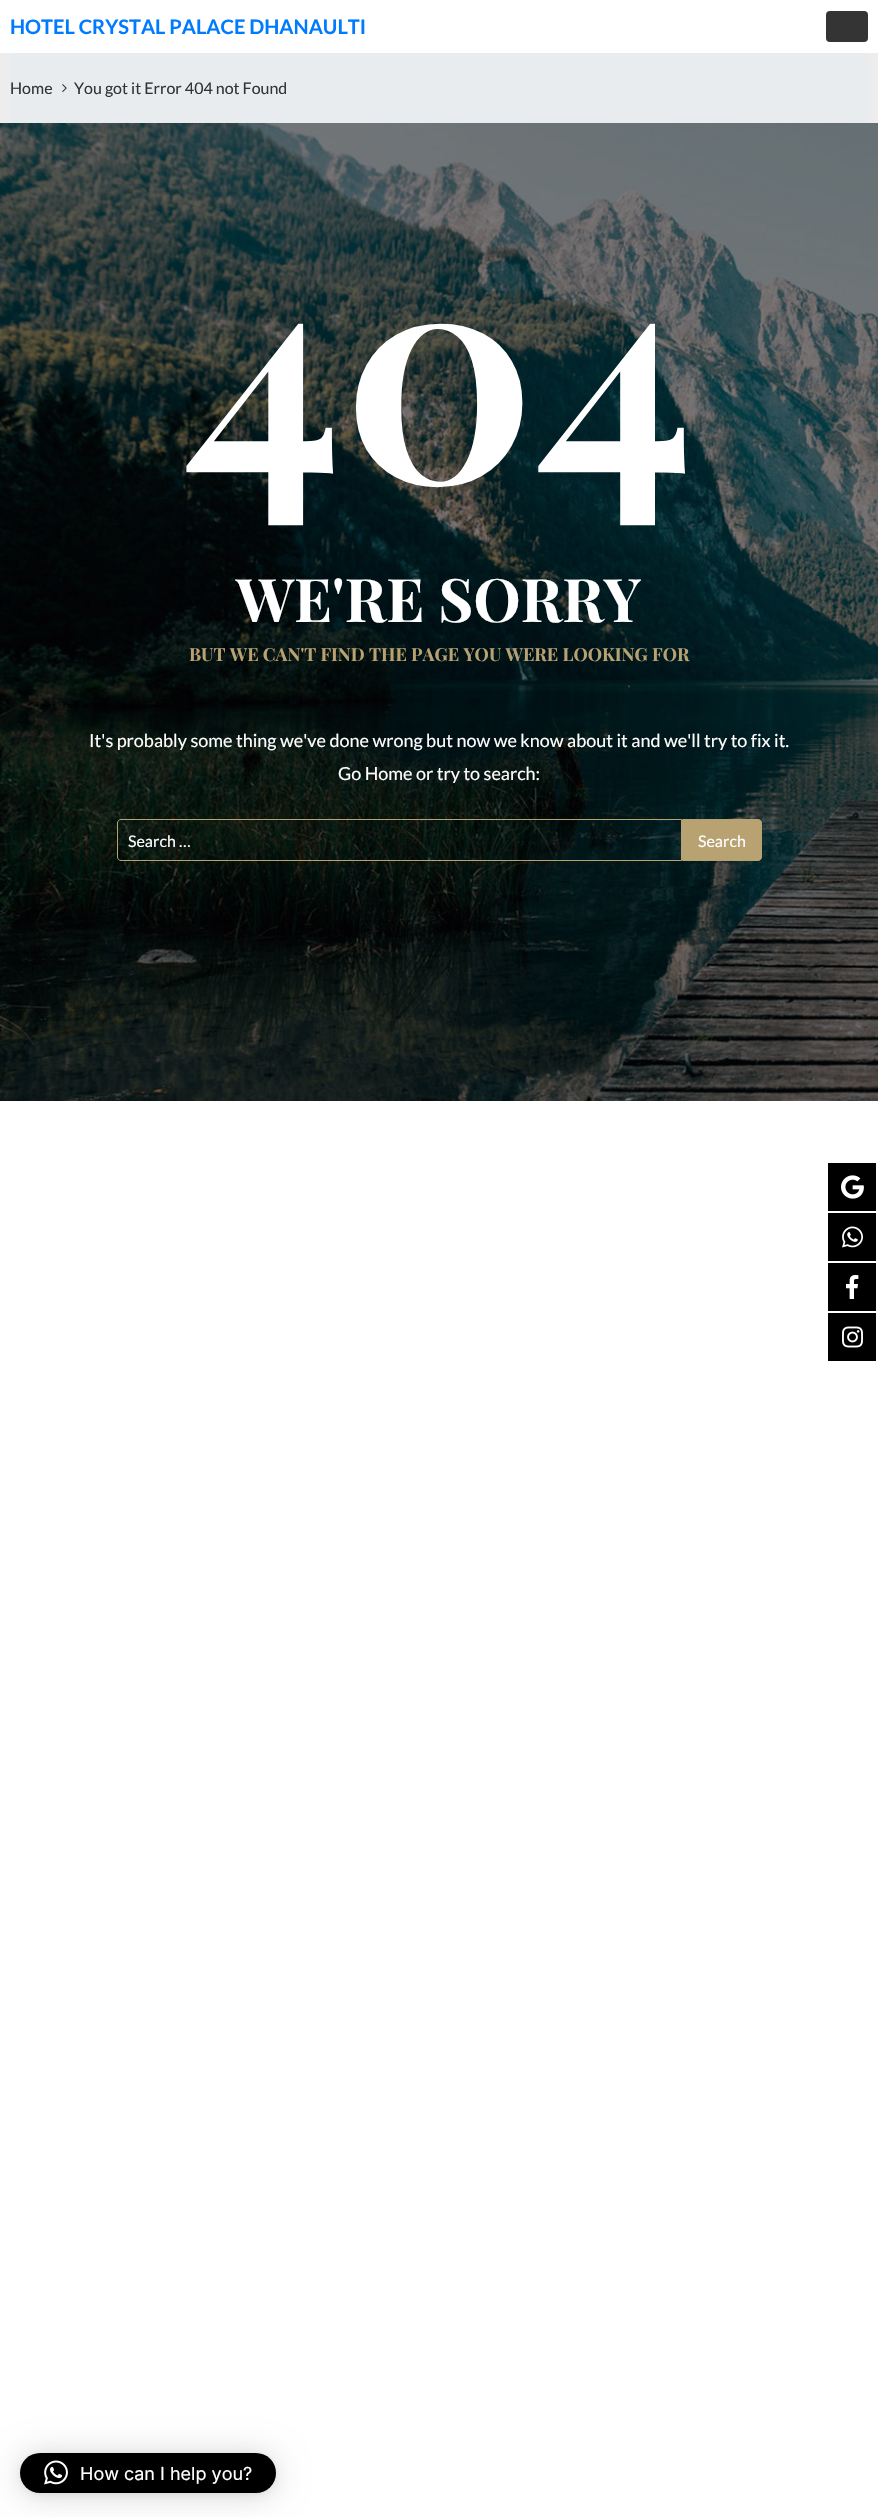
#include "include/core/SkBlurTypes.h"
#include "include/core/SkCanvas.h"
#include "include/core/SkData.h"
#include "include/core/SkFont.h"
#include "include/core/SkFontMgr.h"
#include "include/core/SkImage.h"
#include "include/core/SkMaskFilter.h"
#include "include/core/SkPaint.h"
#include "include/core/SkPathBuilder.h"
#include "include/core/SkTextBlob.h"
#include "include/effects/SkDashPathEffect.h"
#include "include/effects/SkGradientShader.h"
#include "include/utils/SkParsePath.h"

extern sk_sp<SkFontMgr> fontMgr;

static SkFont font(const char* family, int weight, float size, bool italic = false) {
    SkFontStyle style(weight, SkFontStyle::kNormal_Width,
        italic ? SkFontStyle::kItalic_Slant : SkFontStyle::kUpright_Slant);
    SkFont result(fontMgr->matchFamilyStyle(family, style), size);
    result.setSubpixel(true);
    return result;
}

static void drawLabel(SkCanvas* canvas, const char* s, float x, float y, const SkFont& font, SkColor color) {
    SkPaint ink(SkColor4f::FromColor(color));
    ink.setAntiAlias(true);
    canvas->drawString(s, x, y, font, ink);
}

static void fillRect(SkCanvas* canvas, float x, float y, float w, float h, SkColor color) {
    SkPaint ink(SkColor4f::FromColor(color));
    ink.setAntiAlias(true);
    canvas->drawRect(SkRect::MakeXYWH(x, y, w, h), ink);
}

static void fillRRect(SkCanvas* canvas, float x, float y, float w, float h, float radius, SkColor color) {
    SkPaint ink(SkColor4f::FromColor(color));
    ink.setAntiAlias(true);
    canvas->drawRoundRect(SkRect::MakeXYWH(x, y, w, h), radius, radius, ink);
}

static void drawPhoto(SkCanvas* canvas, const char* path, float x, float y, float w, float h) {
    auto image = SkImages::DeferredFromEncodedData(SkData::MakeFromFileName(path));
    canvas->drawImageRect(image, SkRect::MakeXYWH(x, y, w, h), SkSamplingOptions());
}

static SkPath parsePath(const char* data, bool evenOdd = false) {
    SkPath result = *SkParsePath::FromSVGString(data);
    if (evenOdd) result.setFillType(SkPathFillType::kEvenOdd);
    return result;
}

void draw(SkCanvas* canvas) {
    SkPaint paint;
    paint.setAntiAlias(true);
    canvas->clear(0xFFFFFFFF);
    SkFont font1 = font("Lato", 700, 20);
    drawLabel(canvas, "HOTEL CRYSTAL PALACE DHANAULTI", 10, 34, font1, 0xFF007BFF);
    fillRRect(canvas, 826, 11, 42, 31, 4, 0xFF343434);
    fillRect(canvas, 0, 53, 878, 70, 0xFFEDEDED);
    fillRRect(canvas, 10, 53, 858, 70, 4, 0xFFE9ECEF);
    SkFont font2 = font("Lato", 400, 16);
    drawLabel(canvas, "Home", 10, 94, font2, 0xFF343434);
    drawPhoto(canvas, "assets/img1.png", 62, 84, 5, 8);
    drawLabel(canvas, "You got it Error 404 not Found", 74, 94, font2, 0xFF343434);
    drawPhoto(canvas, "assets/img2.png", 0, 123, 878, 978);
    SkFont font3 = font("Playfair Display", 700, 300);
    drawLabel(canvas, "404", 184, 483, font3, 0xFFFFFFFF);
    SkFont font4 = font("Playfair Display", 700, 60);
    drawLabel(canvas, "WE'RE SORRY", 236, 622, font4, 0xFFFFFFFF);
    SkFont font5 = font("Playfair Display", 700, 18);
    drawLabel(canvas, "BUT WE CAN'T FIND THE PAGE YOU WERE LOOKING FOR", 189, 661, font5, 0xFFB9A271);
    SkFont font6 = font("Lato", 400, 18);
    drawLabel(canvas, "It's probably some thing we've done wrong but now we know about it and we'll try to fix it.", 89, 747, font6, 0xFFFFFFFF);
    drawLabel(canvas, "Go Home or try to search:", 338, 780, font6, 0xFFFFFFFF);
    paint.setStroke(true);
    paint.setStrokeWidth(1);
    paint.setColor(0xFFB9A271);
    canvas->drawPath(parsePath("M121 819.5H681.5V860.5H121C119 860.5 117.5 859 117.5 857V823C117.5 821 119 819.5 121 819.5Z"), paint);
    drawLabel(canvas, "Search …", 128, 847, font2, 0xFFFFFFFF);
    paint.setStroke(false);
    canvas->drawPath(parsePath("M682.5 819.5H758C760 819.5 761.5 821 761.5 823V857C761.5 859 760 860.5 758 860.5H682.5Z"), paint);
    paint.setStroke(true);
    canvas->drawPath(parsePath("M682.5 819.5H758C760 819.5 761.5 821 761.5 823V857C761.5 859 760 860.5 758 860.5H682.5Z"), paint);
    drawLabel(canvas, "Search", 698, 847, font2, 0xFFFFFFFF);
    fillRect(canvas, 828, 1163, 48, 48, 0xFF000000);
    drawPhoto(canvas, "assets/img3.png", 841, 1175, 23, 24);
    fillRect(canvas, 828, 1213, 48, 48, 0xFF000000);
    drawPhoto(canvas, "assets/img4.png", 842, 1226, 21, 22);
    fillRect(canvas, 828, 1263, 48, 48, 0xFF000000);
    drawPhoto(canvas, "assets/img5.png", 846, 1275, 13, 24);
    fillRect(canvas, 828, 1313, 48, 48, 0xFF000000);
    drawPhoto(canvas, "assets/img6.png", 842, 1326, 21, 22);
    paint.setStroke(false);
    paint.setColor(0x29000000);
    paint.setMaskFilter(SkMaskFilter::MakeBlur(kNormal_SkBlurStyle, 16));
    canvas->drawRoundRect(SkRect::MakeXYWH(20, 2455, 256, 40), 20, 20, paint);
    paint.setMaskFilter(nullptr);
    paint.setColor(0x0F000000);
    paint.setMaskFilter(SkMaskFilter::MakeBlur(kNormal_SkBlurStyle, 3));
    canvas->drawRoundRect(SkRect::MakeXYWH(20, 2454, 256, 40), 20, 20, paint);
    paint.setMaskFilter(nullptr);
    fillRRect(canvas, 20, 2453, 256, 40, 20, 0xFF000000);
    drawPhoto(canvas, "assets/img7.png", 44, 2460, 24, 25);
    SkFont font7 = font("Inter", 400, 18);
    drawLabel(canvas, "How can I help you?", 80, 2480, font7, 0xFFFFFFFF);
}
